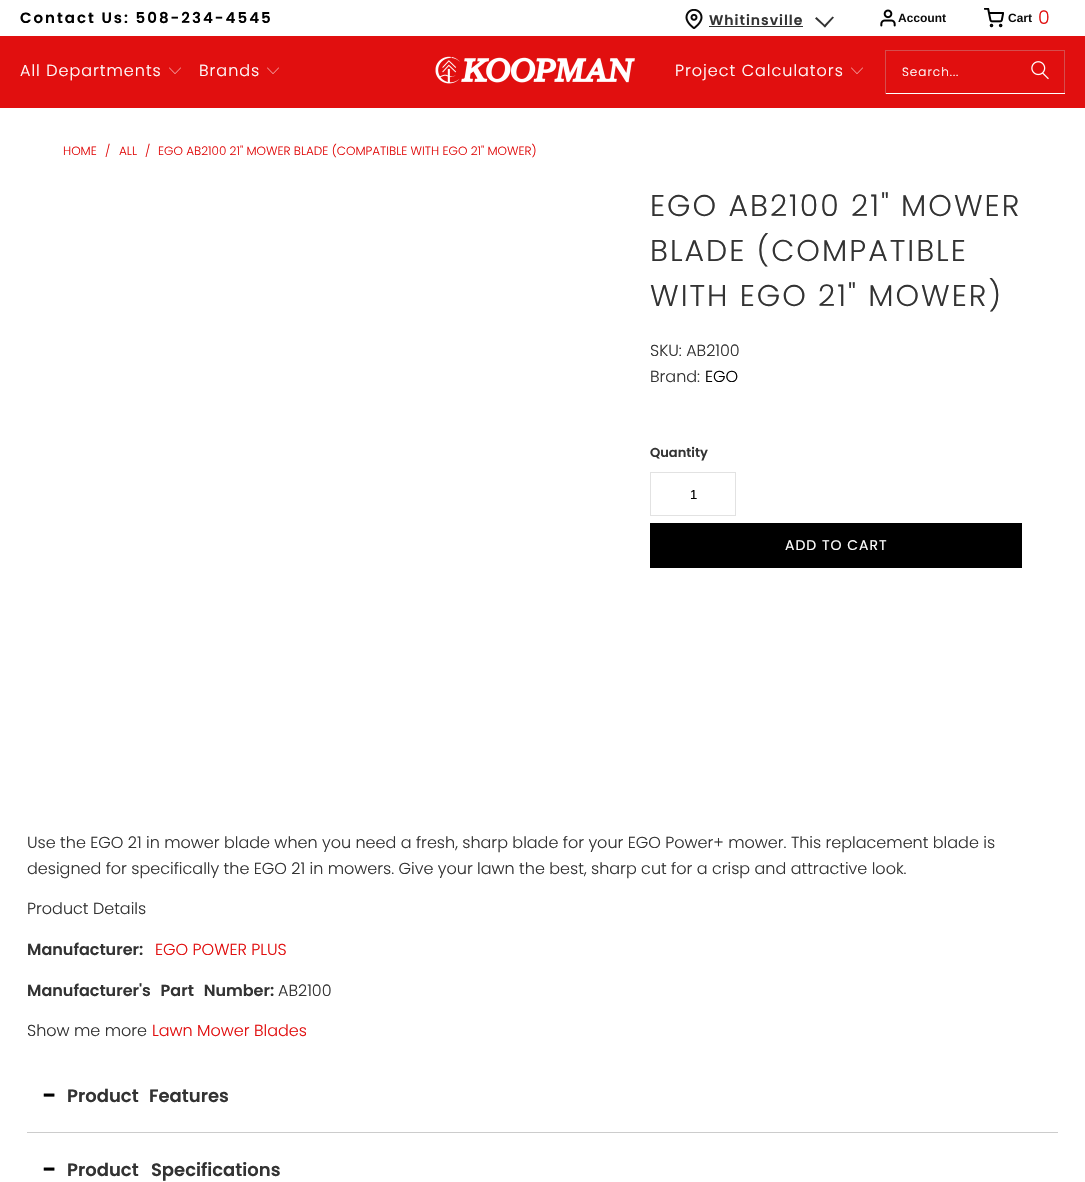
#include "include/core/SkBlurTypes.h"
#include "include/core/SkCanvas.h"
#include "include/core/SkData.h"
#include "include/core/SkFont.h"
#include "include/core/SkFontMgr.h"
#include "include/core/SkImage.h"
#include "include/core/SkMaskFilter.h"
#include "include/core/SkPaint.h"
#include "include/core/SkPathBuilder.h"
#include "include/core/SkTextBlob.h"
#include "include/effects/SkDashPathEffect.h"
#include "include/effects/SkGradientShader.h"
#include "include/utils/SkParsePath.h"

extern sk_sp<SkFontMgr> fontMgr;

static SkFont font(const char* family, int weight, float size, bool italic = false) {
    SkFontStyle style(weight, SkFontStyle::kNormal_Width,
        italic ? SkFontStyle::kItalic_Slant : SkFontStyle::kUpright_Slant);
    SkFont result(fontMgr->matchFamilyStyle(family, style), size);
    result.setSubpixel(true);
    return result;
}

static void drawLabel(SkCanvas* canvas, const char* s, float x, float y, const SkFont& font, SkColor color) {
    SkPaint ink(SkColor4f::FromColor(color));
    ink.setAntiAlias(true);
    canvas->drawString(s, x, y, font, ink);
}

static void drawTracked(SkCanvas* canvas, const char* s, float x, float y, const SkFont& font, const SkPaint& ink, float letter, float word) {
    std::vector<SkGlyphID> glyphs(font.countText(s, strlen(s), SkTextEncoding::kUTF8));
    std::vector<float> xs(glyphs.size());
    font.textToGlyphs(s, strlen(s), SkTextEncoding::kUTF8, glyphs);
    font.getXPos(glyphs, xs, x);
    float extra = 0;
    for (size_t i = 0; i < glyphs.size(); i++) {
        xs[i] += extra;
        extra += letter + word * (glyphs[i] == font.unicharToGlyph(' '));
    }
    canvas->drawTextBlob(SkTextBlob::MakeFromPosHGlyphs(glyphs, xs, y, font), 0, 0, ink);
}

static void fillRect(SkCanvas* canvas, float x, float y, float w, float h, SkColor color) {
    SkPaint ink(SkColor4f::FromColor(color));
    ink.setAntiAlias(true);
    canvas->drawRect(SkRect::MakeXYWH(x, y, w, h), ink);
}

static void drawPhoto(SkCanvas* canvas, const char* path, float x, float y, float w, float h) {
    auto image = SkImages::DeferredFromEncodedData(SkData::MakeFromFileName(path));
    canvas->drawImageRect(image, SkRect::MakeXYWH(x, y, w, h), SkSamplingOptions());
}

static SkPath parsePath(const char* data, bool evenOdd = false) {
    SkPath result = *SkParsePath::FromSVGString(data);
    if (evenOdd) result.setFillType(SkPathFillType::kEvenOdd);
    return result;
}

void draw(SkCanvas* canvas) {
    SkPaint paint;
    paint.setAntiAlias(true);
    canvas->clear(0xFFFFFFFF);
    SkFont font1 = font("Poppins", 600, 15);
    paint.setColor(0xFF000000);
    drawTracked(canvas, "Contact Us: 508-234-4545", 20, 23, font1, paint, 2, 0);
    drawPhoto(canvas, "assets/img1.png", 685, 9, 18, 20);
    SkFont font2 = font("Poppins", 600, 14);
    paint.setColor(0xFF333333);
    drawTracked(canvas, "Whitinsville", 709, 25, font2, paint, 1, 0);
    fillRect(canvas, 709, 26, 94, 1, 0xFF333333);
    canvas->drawPath(parsePath("M834 17.5L825 27.5L823.5 26L832.5 16.5Z"), paint);
    canvas->drawPath(parsePath("M826 26L825 27.5L815 18.5L816.5 17Z"), paint);
    drawPhoto(canvas, "assets/img2.png", 880, 9, 66, 18);
    drawPhoto(canvas, "assets/img3.png", 984, 8, 48, 20);
    SkFont font3 = font("Poppins", 300, 19);
    drawLabel(canvas, "0", 1038, 24, font3, 0xFFE10F0F);
    fillRect(canvas, 0, 36, 1085, 72, 0xFFE10F0F);
    SkFont font4 = font("Poppins", 300, 16);
    paint.setColor(0xFFFFFFFF);
    drawTracked(canvas, "All Departments", 20, 76, font4, paint, 1, 0);
    drawPhoto(canvas, "assets/img4.png", 169, 67, 12, 7);
    drawTracked(canvas, "Brands", 199, 76, font4, paint, 1, 0);
    drawPhoto(canvas, "assets/img4.png", 267, 67, 12, 7);
    drawPhoto(canvas, "assets/img5.png", 435, 56, 200, 28);
    drawTracked(canvas, "Project Calculators", 675, 76, font4, paint, 1, 0);
    drawPhoto(canvas, "assets/img4.png", 851, 67, 12, 7);
    fillRect(canvas, 885, 50, 180, 1, 0xFFD54D4D);
    fillRect(canvas, 1064, 50, 1, 44, 0xFFD54D4D);
    fillRect(canvas, 885, 93, 180, 1, 0xFFFFFFFF);
    fillRect(canvas, 885, 50, 1, 44, 0xFFD54D4D);
    SkFont font5 = font("Poppins", 300, 12);
    drawTracked(canvas, "Search...", 902, 76, font5, paint, 1, 0);
    drawPhoto(canvas, "assets/img6.png", 1031, 61, 18, 19);
    drawLabel(canvas, "HOME", 63, 155, font5, 0xFFE10F0F);
    drawLabel(canvas, "/", 105, 155, font5, 0xFFE10F0F);
    drawLabel(canvas, "ALL", 119, 155, font5, 0xFFE10F0F);
    drawLabel(canvas, "/", 145, 155, font5, 0xFFE10F0F);
    drawLabel(canvas, "EGO AB2100 21\" MOWER BLADE (COMPATIBLE WITH EGO 21\" MOWER)", 158, 155, font5, 0xFFE10F0F);
    SkFont font6 = font("Poppins", 300, 30);
    paint.setColor(0xFF333333);
    drawTracked(canvas, "EGO AB2100 21\" MOWER", 650, 216, font6, paint, 2, 0);
    drawTracked(canvas, "BLADE (COMPATIBLE", 650, 261, font6, paint, 2, 0);
    drawTracked(canvas, "WITH EGO 21\" MOWER)", 650, 306, font6, paint, 2, 0);
    drawLabel(canvas, "SKU: AB2100", 650, 356, font4, 0xFF333333);
    drawLabel(canvas, "Brand:", 650, 382, font4, 0xFF333333);
    drawLabel(canvas, "EGO", 705, 382, font4, 0xFF000000);
    SkFont font7 = font("Poppins", 600, 13);
    drawLabel(canvas, "Quantity", 650, 457, font7, 0xFF333333);
    paint.setStroke(true);
    paint.setStrokeWidth(1);
    paint.setColor(0xFFE2E2E2);
    canvas->drawRect(SkRect::MakeXYWH(650.5f, 472.5f, 85, 43), paint);
    SkFont font8 = font("Liberation Sans", 400, 13);
    drawLabel(canvas, "1", 690, 499, font8, 0xFF000000);
    fillRect(canvas, 650, 523, 372, 45, 0xFF000000);
    SkFont font9 = font("Poppins", 400, 14);
    paint.setStroke(false);
    paint.setColor(0xFFFFFFFF);
    drawTracked(canvas, "ADD TO CART", 785, 550, font9, paint, 1, 0);
    drawLabel(canvas, "Use the EGO 21 in mower blade when you need a fresh, sharp blade for your EGO Power+ mower. This replacement blade is", 27, 848, font4, 0xFF333333);
    drawLabel(canvas, "designed for specifically the EGO 21 in mowers. Give your lawn the best, sharp cut for a crisp and attractive look.", 27, 874, font4, 0xFF333333);
    drawLabel(canvas, "Product Details", 27, 914, font4, 0xFF333333);
    SkFont font10 = font("Poppins", 600, 16);
    drawLabel(canvas, "Manufacturer:", 27, 955, font10, 0xFF333333);
    drawLabel(canvas, "EGO POWER PLUS", 155, 955, font4, 0xFFE10F0F);
    paint.setColor(0xFF333333);
    drawTracked(canvas, "Manufacturer's Part Number:", 27, 996, font10, paint, 0, 6);
    drawLabel(canvas, "AB2100", 278, 996, font4, 0xFF333333);
    drawLabel(canvas, "Show me more", 27, 1036, font4, 0xFF333333);
    drawLabel(canvas, "Lawn Mower Blades", 152, 1036, font4, 0xFFE10F0F);
    fillRect(canvas, 27, 1132, 1031, 1, 0xFFCCCCCC);
    SkFont font11 = font("Poppins", 600, 25);
    drawLabel(canvas, "-", 42, 1104, font11, 0xFF000000);
    SkFont font12 = font("Poppins", 600, 18);
    drawTracked(canvas, "Product Features", 67, 1102, font12, paint, 0, 6);
    drawLabel(canvas, "-", 42, 1178, font11, 0xFF000000);
    drawTracked(canvas, "Product Specifications", 67, 1176, font12, paint, 0, 8);
}
